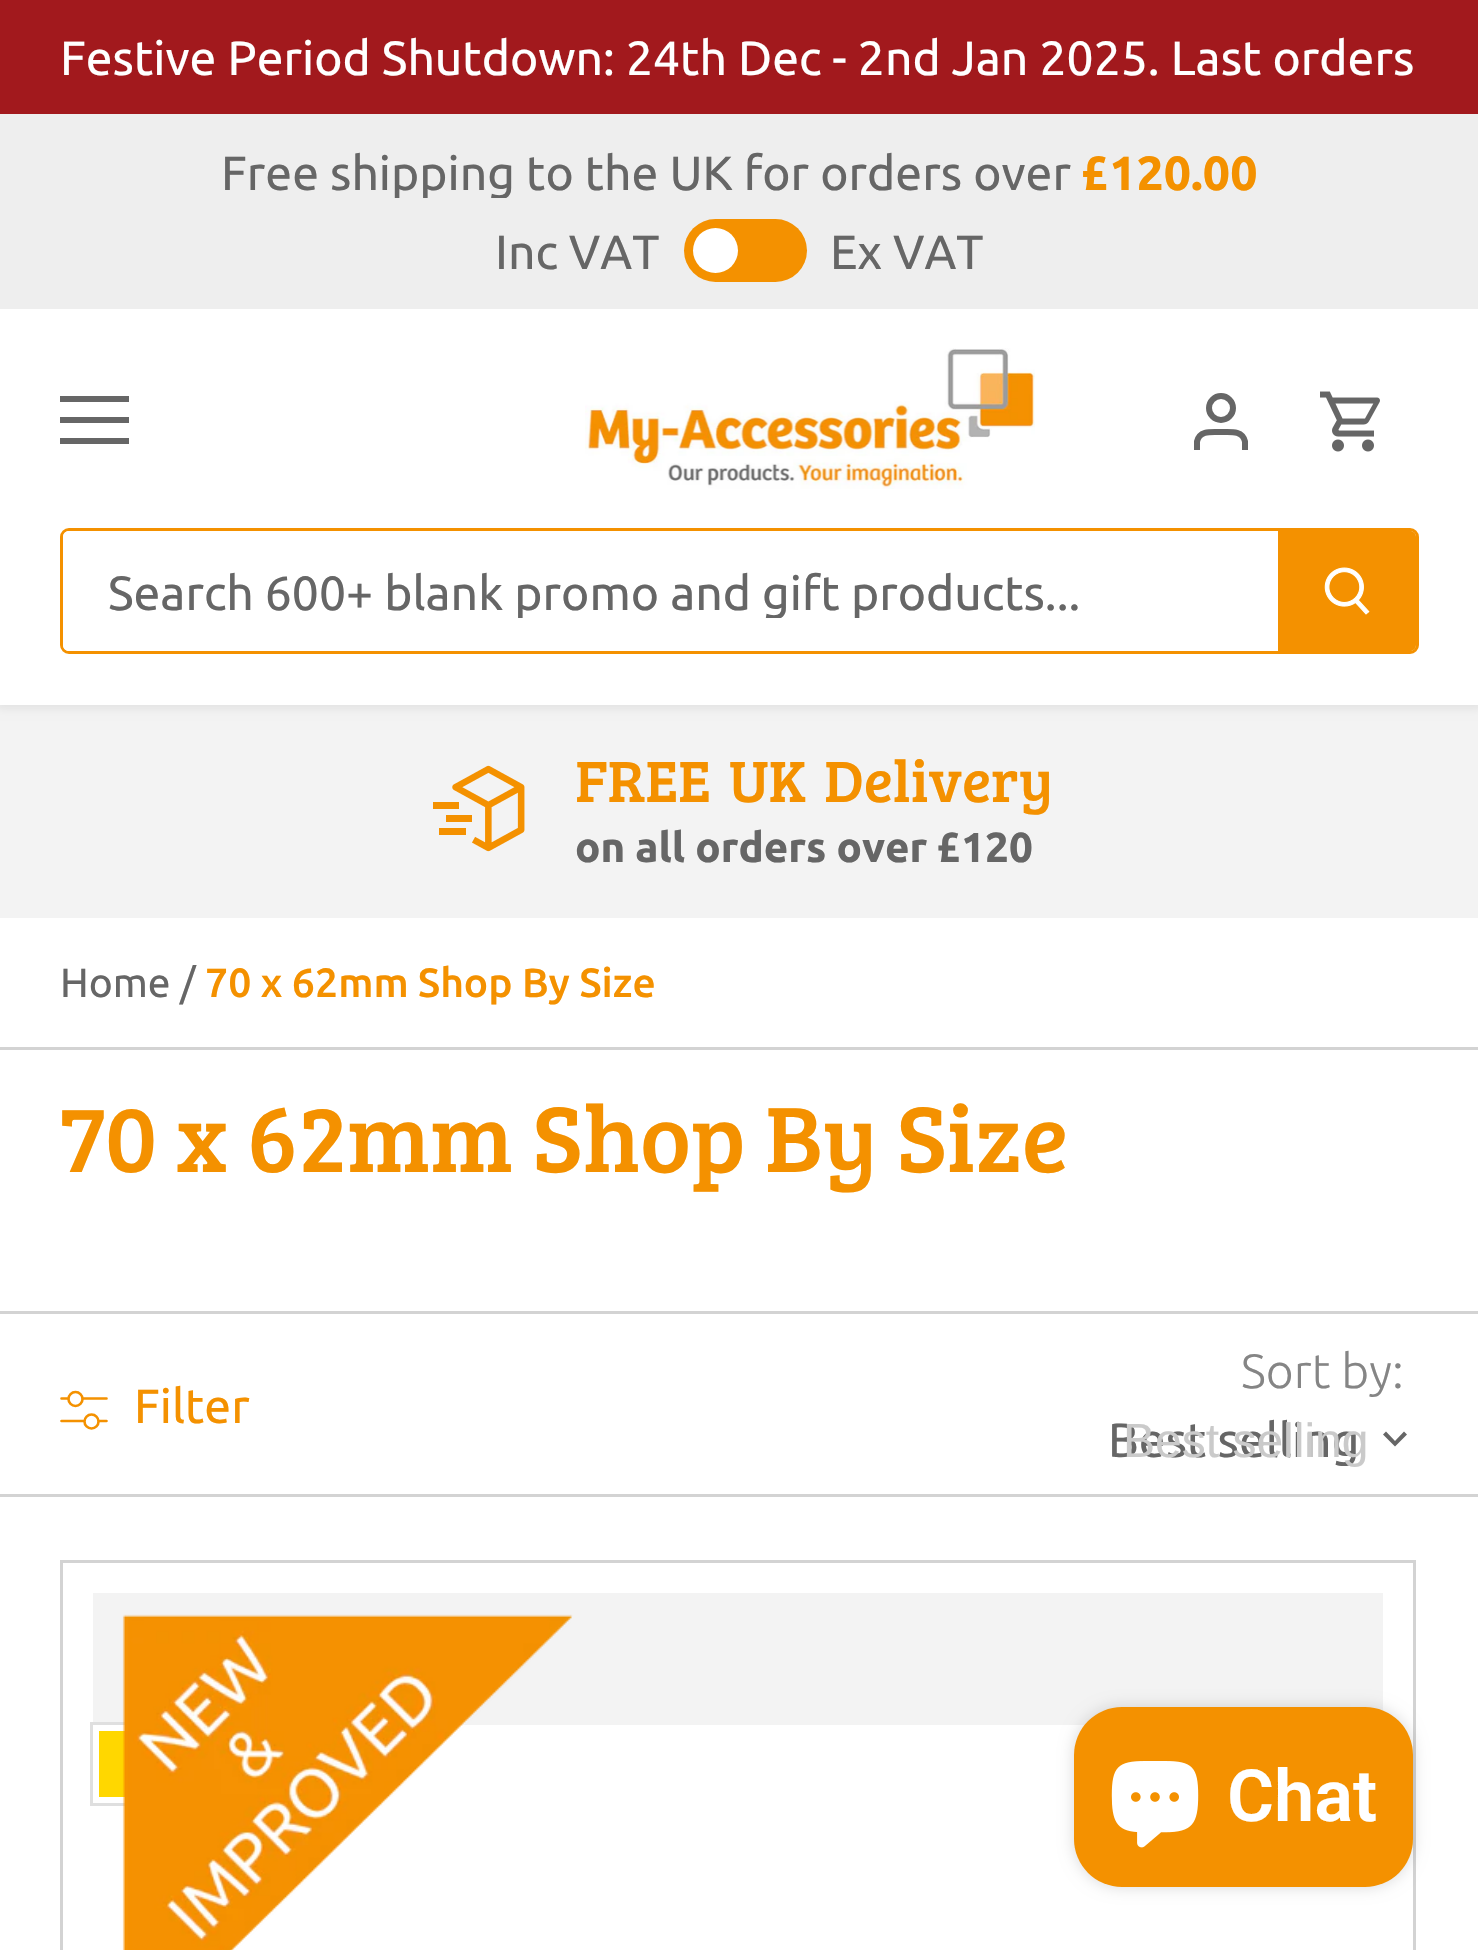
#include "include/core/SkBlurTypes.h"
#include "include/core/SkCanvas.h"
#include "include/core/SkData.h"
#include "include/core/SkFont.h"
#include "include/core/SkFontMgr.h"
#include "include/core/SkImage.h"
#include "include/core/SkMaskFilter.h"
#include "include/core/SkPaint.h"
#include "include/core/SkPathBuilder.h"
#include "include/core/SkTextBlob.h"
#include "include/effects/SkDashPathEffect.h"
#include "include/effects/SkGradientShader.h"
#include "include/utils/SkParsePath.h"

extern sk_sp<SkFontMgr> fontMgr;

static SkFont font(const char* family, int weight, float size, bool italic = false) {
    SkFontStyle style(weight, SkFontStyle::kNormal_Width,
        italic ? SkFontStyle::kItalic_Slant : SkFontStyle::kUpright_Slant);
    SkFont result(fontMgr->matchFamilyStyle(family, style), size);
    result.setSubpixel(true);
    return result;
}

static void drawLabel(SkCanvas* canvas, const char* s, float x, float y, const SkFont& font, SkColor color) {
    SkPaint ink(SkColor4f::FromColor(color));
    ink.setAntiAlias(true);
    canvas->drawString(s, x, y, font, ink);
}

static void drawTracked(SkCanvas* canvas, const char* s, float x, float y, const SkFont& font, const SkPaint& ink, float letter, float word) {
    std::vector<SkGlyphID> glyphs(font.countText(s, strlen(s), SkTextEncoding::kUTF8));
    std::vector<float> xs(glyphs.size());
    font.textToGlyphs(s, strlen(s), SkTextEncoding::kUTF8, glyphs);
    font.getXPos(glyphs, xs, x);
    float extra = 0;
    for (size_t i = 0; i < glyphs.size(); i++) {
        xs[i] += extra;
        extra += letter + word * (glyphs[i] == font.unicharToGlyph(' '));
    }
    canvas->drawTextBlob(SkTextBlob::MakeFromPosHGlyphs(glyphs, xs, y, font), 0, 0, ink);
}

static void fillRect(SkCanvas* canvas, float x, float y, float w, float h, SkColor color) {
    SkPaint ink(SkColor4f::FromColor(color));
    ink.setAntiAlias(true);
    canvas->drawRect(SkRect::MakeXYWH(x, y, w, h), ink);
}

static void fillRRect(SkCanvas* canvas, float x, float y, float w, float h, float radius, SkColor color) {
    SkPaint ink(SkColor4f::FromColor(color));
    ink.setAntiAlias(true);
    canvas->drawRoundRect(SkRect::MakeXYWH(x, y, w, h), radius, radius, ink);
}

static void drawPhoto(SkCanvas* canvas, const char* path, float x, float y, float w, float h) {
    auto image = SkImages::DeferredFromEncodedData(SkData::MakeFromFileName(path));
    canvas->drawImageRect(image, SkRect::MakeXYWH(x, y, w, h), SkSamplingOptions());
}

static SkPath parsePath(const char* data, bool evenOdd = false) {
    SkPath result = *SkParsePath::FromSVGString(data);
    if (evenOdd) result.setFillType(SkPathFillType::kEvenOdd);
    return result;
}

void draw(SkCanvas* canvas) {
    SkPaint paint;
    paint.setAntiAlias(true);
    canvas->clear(0xFFFFFFFF);
    fillRect(canvas, 0, 0, 1478, 114, 0xFFA2191D);
    SkFont font1 = font("Ubuntu", 400, 48);
    drawLabel(canvas, "Festive Period Shutdown: 24th Dec - 2nd Jan 2025. Last orders", 60, 75, font1, 0xFFFFFFFF);
    fillRect(canvas, 0, 705, 1478, 213, 0xFFF3F3F3);
    paint.setColor(0x14000000);
    paint.setMaskFilter(SkMaskFilter::MakeBlur(kNormal_SkBlurStyle, 4.5f));
    canvas->drawRect(SkRect::MakeXYWH(-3, 306, 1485, 402), paint);
    paint.setMaskFilter(nullptr);
    fillRect(canvas, 0, 114, 1478, 195, 0xFFEEEEEE);
    canvas->save();
    canvas->clipRect(SkRect::MakeXYWH(60, 138, 1359, 60));
    drawLabel(canvas, "Free shipping to the UK for orders over", 221, 190, font1, 0xFF666666);
    canvas->restore();
    SkFont font2 = font("Ubuntu", 700, 48);
    drawLabel(canvas, "£120.00", 1082, 190, font2, 0xFFF49100);
    drawLabel(canvas, "Inc VAT", 495, 269, font1, 0xFF666666);
    fillRRect(canvas, 684, 219, 123, 63, 31.5f, 0xFFF49100);
    paint.setColor(0xFFFFFFFF);
    canvas->drawCircle(715.5f, 250.5f, 22.5f, paint);
    drawLabel(canvas, "Ex VAT", 830, 269, font1, 0xFF666666);
    fillRect(canvas, 0, 309, 1478, 396, 0xFFFFFFFF);
    fillRect(canvas, 60, 396, 69, 6, 0xFF666666);
    fillRect(canvas, 60, 417, 69, 6, 0xFF666666);
    fillRect(canvas, 60, 438, 69, 6, 0xFF666666);
    drawPhoto(canvas, "assets/img1.png", 585, 348, 450, 141);
    paint.setStroke(true);
    paint.setStrokeWidth(6);
    paint.setColor(0xFF666666);
    canvas->drawCircle(1221, 408, 12, paint);
    canvas->drawPath(parsePath("M1245 450V441.5C1242.5 430 1230 432 1221 432C1212 432 1199.5 430 1197 441.5V450"), paint);
    drawPhoto(canvas, "assets/img2.png", 1320, 391, 60, 61);
    paint.setStrokeWidth(3);
    paint.setColor(0xFFF49100);
    canvas->drawRoundRect(SkRect::MakeXYWH(61.5f, 529.5f, 1356, 123), 7.5f, 7.5f, paint);
    paint.setStroke(false);
    paint.setColor(0xFFFFFFFF);
    canvas->drawPath(parsePath("M69 531H1281V651H69C65.5 651 63 648.5 63 645V537C63 533.5 65.5 531 69 531Z"), paint);
    canvas->save();
    canvas->clipRect(SkRect::MakeXYWH(63, 564, 1218, 54));
    drawLabel(canvas, "Search 600+ blank promo and gift products...", 108, 610, font1, 0xFF666666);
    canvas->restore();
    paint.setColor(0xFFF49100);
    canvas->drawPath(parsePath("M1278 531H1410C1413.5 531 1416 533.5 1416 537V645C1416 648.5 1413.5 651 1410 651H1278Z"), paint);
    drawPhoto(canvas, "assets/img3.png", 1324, 567, 46, 48);
    drawPhoto(canvas, "assets/img4.png", 433, 765, 92, 87);
    SkFont font3 = font("Bree Serif", 400, 60);
    drawTracked(canvas, "FREE UK Delivery", 575, 802, font3, paint, 0, 6);
    SkFont font4 = font("Ubuntu", 700, 42);
    drawLabel(canvas, "on all orders over £120", 575, 862, font4, 0xFF666666);
    fillRect(canvas, 0, 1047, 1478, 3, 0xFFD3D3D3);
    SkFont font5 = font("Ubuntu", 400, 40.75f);
    drawLabel(canvas, "Home /", 60, 997, font5, 0xFF666666);
    SkFont font6 = font("Ubuntu", 500, 40.75f);
    drawLabel(canvas, "70 x 62mm Shop By Size", 205, 997, font6, 0xFFF49100);
    SkFont font7 = font("Bree Serif", 400, 96);
    drawLabel(canvas, "70 x 62mm Shop By Size", 60, 1172, font7, 0xFFF49100);
    fillRect(canvas, 0, 1311, 1478, 3, 0xFFD3D3D3);
    fillRect(canvas, 0, 1494, 1478, 3, 0xFFD3D3D3);
    paint.setStroke(true);
    paint.setStrokeWidth(2.6f);
    paint.setStrokeCap(SkPaint::kRound_Cap);
    paint.setStrokeJoin(SkPaint::kRound_Join);
    canvas->drawPath(parsePath("M61.5 1398.5H67.5M83 1398.5H106.5M61.5 1421H83.5M99 1421H106.5"), paint);
    paint.setStrokeCap(SkPaint::kButt_Cap);
    paint.setStrokeJoin(SkPaint::kMiter_Join);
    canvas->drawCircle(75.5f, 1399, 7, paint);
    drawLabel(canvas, "Filter", 134, 1423, font1, 0xFFF49100);
    canvas->drawCircle(91.5f, 1421.5f, 7, paint);
    SkFont font8 = font("Ubuntu", 300, 48);
    drawLabel(canvas, "Sort by:", 1241, 1388, font8, 0xFF858585);
    drawLabel(canvas, "Best selling", 1108, 1457, font1, 0xFF666666);
    SkFont font9 = font("Liberation Sans", 400, 48);
    drawLabel(canvas, "Best selling", 1123, 1457, font9, 0xFFCACACA);
    paint.setStroke(false);
    paint.setColor(0xFF666666);
    canvas->drawPath(parsePath("M1386 1431.5L1395 1441L1404 1431.5L1407 1434.5L1395 1446.5L1383 1434.5Z"), paint);
    paint.setStroke(true);
    paint.setStrokeWidth(3);
    paint.setColor(0xFFD3D3D3);
    canvas->drawRect(SkRect::MakeXYWH(61.5f, 1561.5f, 1353, 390), paint);
    fillRect(canvas, 93, 1593, 1290, 132, 0xFFF3F3F3);
    paint.setColor(0xFFDFDFDF);
    canvas->drawRect(SkRect::MakeXYWH(91.5f, 1723.5f, 81, 81), paint);
    fillRect(canvas, 99, 1731, 30, 66, 0xFFFFD700);
    canvas->drawRect(SkRect::MakeXYWH(292.5f, 1723.5f, 81, 81), paint);
    drawPhoto(canvas, "assets/img5.png", 122, 1614, 451, 336);
    paint.setStroke(false);
    paint.setColor(0x26000000);
    paint.setMaskFilter(SkMaskFilter::MakeBlur(kNormal_SkBlurStyle, 7.5f));
    canvas->drawRoundRect(SkRect::MakeXYWH(1074, 1707, 339, 180), 48, 48, paint);
    paint.setMaskFilter(nullptr);
    fillRRect(canvas, 1074, 1707, 339, 180, 48, 0xFFF49100);
    drawPhoto(canvas, "assets/img6.png", 1111, 1761, 88, 87);
    SkFont font10 = font("Roboto", 600, 72);
    drawLabel(canvas, "Chat", 1227, 1821, font10, 0xFFFFFFFF);
}
